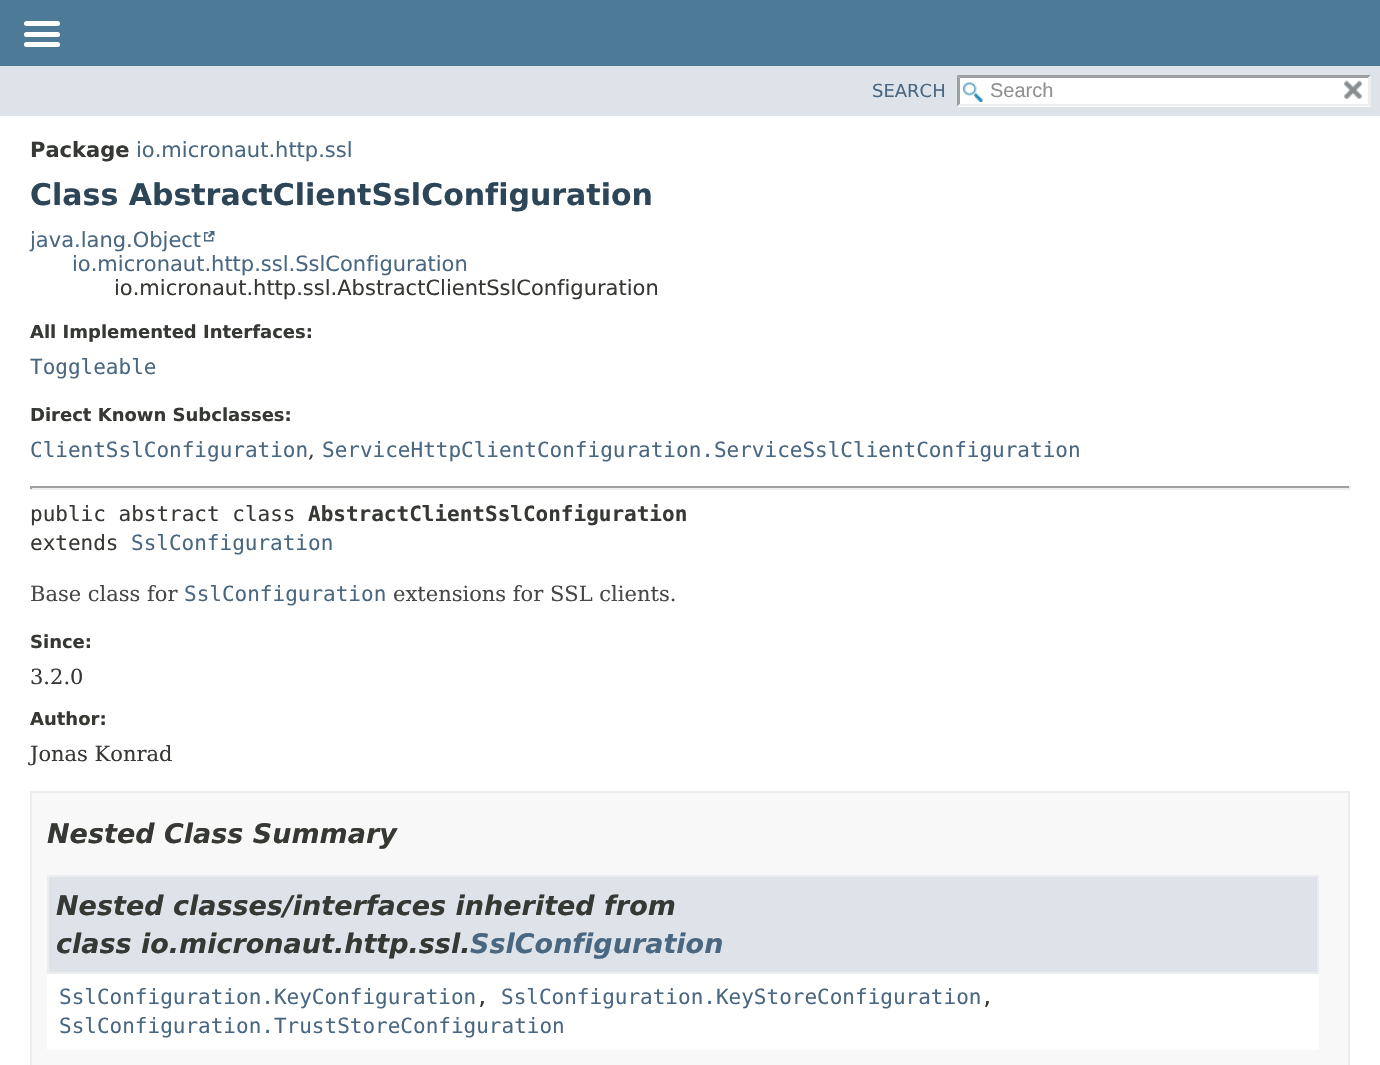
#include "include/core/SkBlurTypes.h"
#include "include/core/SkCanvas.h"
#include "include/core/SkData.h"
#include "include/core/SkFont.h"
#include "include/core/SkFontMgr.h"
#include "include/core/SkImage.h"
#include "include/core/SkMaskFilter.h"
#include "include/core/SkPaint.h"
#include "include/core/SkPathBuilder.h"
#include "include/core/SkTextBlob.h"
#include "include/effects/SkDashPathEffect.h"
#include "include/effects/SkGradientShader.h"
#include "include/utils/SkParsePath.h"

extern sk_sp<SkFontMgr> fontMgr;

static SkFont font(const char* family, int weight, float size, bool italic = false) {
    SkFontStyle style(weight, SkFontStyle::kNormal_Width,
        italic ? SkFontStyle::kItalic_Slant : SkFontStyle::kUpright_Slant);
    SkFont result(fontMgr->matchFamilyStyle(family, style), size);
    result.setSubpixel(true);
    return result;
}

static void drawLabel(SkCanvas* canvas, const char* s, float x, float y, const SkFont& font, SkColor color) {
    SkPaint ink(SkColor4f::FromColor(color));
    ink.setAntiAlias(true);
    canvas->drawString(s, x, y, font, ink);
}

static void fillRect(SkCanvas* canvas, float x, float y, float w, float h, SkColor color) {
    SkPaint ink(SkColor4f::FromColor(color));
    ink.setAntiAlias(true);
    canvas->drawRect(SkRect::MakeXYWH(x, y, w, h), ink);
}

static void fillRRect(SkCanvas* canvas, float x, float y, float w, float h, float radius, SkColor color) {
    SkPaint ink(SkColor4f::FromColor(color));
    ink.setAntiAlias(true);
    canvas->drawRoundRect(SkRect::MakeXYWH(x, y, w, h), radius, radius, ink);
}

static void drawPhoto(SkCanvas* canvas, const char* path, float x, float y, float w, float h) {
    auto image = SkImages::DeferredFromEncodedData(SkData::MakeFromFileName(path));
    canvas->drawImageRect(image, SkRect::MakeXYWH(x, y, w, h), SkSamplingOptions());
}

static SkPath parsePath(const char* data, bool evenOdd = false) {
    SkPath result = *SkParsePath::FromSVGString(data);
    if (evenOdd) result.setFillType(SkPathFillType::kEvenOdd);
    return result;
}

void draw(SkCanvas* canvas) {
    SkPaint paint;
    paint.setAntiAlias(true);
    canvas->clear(0xFFFFFFFF);
    fillRect(canvas, 0, 0, 1380, 66, 0xFF4D7A97);
    fillRRect(canvas, 24, 21, 36, 5, 2.5f, 0xFFFFFFFF);
    fillRRect(canvas, 24, 32, 36, 5, 2.5f, 0xFFFFFFFF);
    fillRRect(canvas, 24, 42, 36, 5, 2.5f, 0xFFFFFFFF);
    fillRect(canvas, 0, 66, 1380, 50, 0xFFDEE3E9);
    SkFont font1 = font("DejaVu Sans", 400, 18);
    drawLabel(canvas, "SEARCH", 872, 97, font1, 0xFF4A6782);
    fillRect(canvas, 957, 75, 414, 32, 0xFFFFFFFF);
    drawPhoto(canvas, "assets/img1.png", 963, 82, 20, 20);
    paint.setColor(0xFF9E9E9E);
    canvas->drawPath(parsePath("M957 75H1371L1368 78H960Z"), paint);
    paint.setColor(0xFFEDEDED);
    canvas->drawPath(parsePath("M1371 75V106.5L1368 103.5V78Z"), paint);
    canvas->drawPath(parsePath("M1371 106H957L960 104H1368Z"), paint);
    paint.setColor(0xFF9E9E9E);
    canvas->drawPath(parsePath("M957 106.5V75L960 78V103.5Z"), paint);
    SkFont font2 = font("Liberation Sans", 400, 20);
    drawLabel(canvas, "Search", 990, 97, font2, 0xFF909090);
    drawPhoto(canvas, "assets/img2.png", 1344, 80, 18, 19);
    SkFont font3 = font("DejaVu Sans", 700, 21);
    drawLabel(canvas, "Package", 30, 157, font3, 0xFF353833);
    SkFont font4 = font("DejaVu Sans", 400, 21);
    drawLabel(canvas, "io.micronaut.http.ssl", 136, 157, font4, 0xFF4A6782);
    SkFont font5 = font("DejaVu Sans", 700, 30);
    drawLabel(canvas, "Class AbstractClientSslConfiguration", 30, 205, font5, 0xFF2C4557);
    drawLabel(canvas, "java.lang.Object", 30, 247, font4, 0xFF4A6782);
    drawPhoto(canvas, "assets/img3.png", 204, 231, 11, 11);
    drawLabel(canvas, "io.micronaut.http.ssl.SslConfiguration", 72, 271, font4, 0xFF4A6782);
    drawLabel(canvas, "io.micronaut.http.ssl.AbstractClientSslConfiguration", 114, 295, font4, 0xFF353833);
    SkFont font6 = font("DejaVu Sans", 700, 18);
    drawLabel(canvas, "All Implemented Interfaces:", 30, 338, font6, 0xFF353833);
    SkFont font7 = font("DejaVu Sans Mono", 400, 21);
    drawLabel(canvas, "Toggleable", 30, 374, font7, 0xFF4A6782);
    drawLabel(canvas, "Direct Known Subclasses:", 30, 421, font6, 0xFF353833);
    drawLabel(canvas, "ClientSslConfiguration", 30, 457, font7, 0xFF4A6782);
    SkFont font8 = font("DejaVu Serif", 400, 21);
    drawLabel(canvas, ",", 308, 457, font8, 0xFF353833);
    drawLabel(canvas, "ServiceHttpClientConfiguration.ServiceSslClientConfiguration", 322, 457, font7, 0xFF4A6782);
    fillRect(canvas, 30, 486, 1320, 2, 0xFF9F9F9F);
    fillRect(canvas, 1349, 486, 2, 3, 0xFFEEEEEE);
    fillRect(canvas, 30, 488, 1320, 2, 0xFFEEEEEE);
    fillRect(canvas, 30, 486, 2, 3, 0xFF9F9F9F);
    drawLabel(canvas, "public abstract class", 30, 521, font7, 0xFF353833);
    SkFont font9 = font("DejaVu Sans Mono", 700, 21);
    drawLabel(canvas, "AbstractClientSslConfiguration", 308, 521, font9, 0xFF353833);
    drawLabel(canvas, "extends", 30, 550, font7, 0xFF353833);
    drawLabel(canvas, "SslConfiguration", 131, 550, font7, 0xFF4A6782);
    drawLabel(canvas, "Base class for", 30, 601, font8, 0xFF474747);
    drawLabel(canvas, "SslConfiguration", 184, 601, font7, 0xFF4A6782);
    drawLabel(canvas, "extensions for SSL clients.", 393, 601, font8, 0xFF474747);
    drawLabel(canvas, "Since:", 30, 648, font6, 0xFF353833);
    drawLabel(canvas, "3.2.0", 30, 684, font8, 0xFF353833);
    drawLabel(canvas, "Author:", 30, 725, font6, 0xFF353833);
    drawLabel(canvas, "Jonas Konrad", 30, 761, font8, 0xFF353833);
    paint.setColor(0xFFF8F8F8);
    canvas->drawRect(SkRect::MakeXYWH(31, 792, 1318, 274), paint);
    paint.setStroke(true);
    paint.setStrokeWidth(2);
    paint.setColor(0xFFEDEDED);
    canvas->drawRect(SkRect::MakeXYWH(31, 792, 1318, 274), paint);
    SkFont font10 = font("DejaVu Sans", 700, 27, true);
    drawLabel(canvas, "Nested Class Summary", 47, 843, font10, 0xFF353833);
    fillRect(canvas, 47, 974, 1272, 76, 0xFFFFFFFF);
    paint.setStroke(false);
    paint.setColor(0xFFDEE3E9);
    canvas->drawRect(SkRect::MakeXYWH(48, 876, 1270, 97), paint);
    paint.setStroke(true);
    paint.setColor(0xFFEDEDED);
    canvas->drawRect(SkRect::MakeXYWH(48, 876, 1270, 97), paint);
    drawLabel(canvas, "Nested classes/interfaces inherited from", 56, 915, font10, 0xFF353833);
    drawLabel(canvas, "class io.micronaut.http.ssl.", 56, 953, font10, 0xFF353833);
    drawLabel(canvas, "SslConfiguration", 470, 953, font10, 0xFF4A6782);
    drawLabel(canvas, "SslConfiguration.KeyConfiguration", 59, 1004, font7, 0xFF4A6782);
    drawLabel(canvas, ",", 476, 1004, font7, 0xFF353833);
    drawLabel(canvas, "SslConfiguration.KeyStoreConfiguration", 501, 1004, font7, 0xFF4A6782);
    drawLabel(canvas, ",", 981, 1004, font7, 0xFF353833);
    drawLabel(canvas, "SslConfiguration.TrustStoreConfiguration", 59, 1033, font7, 0xFF4A6782);
}
